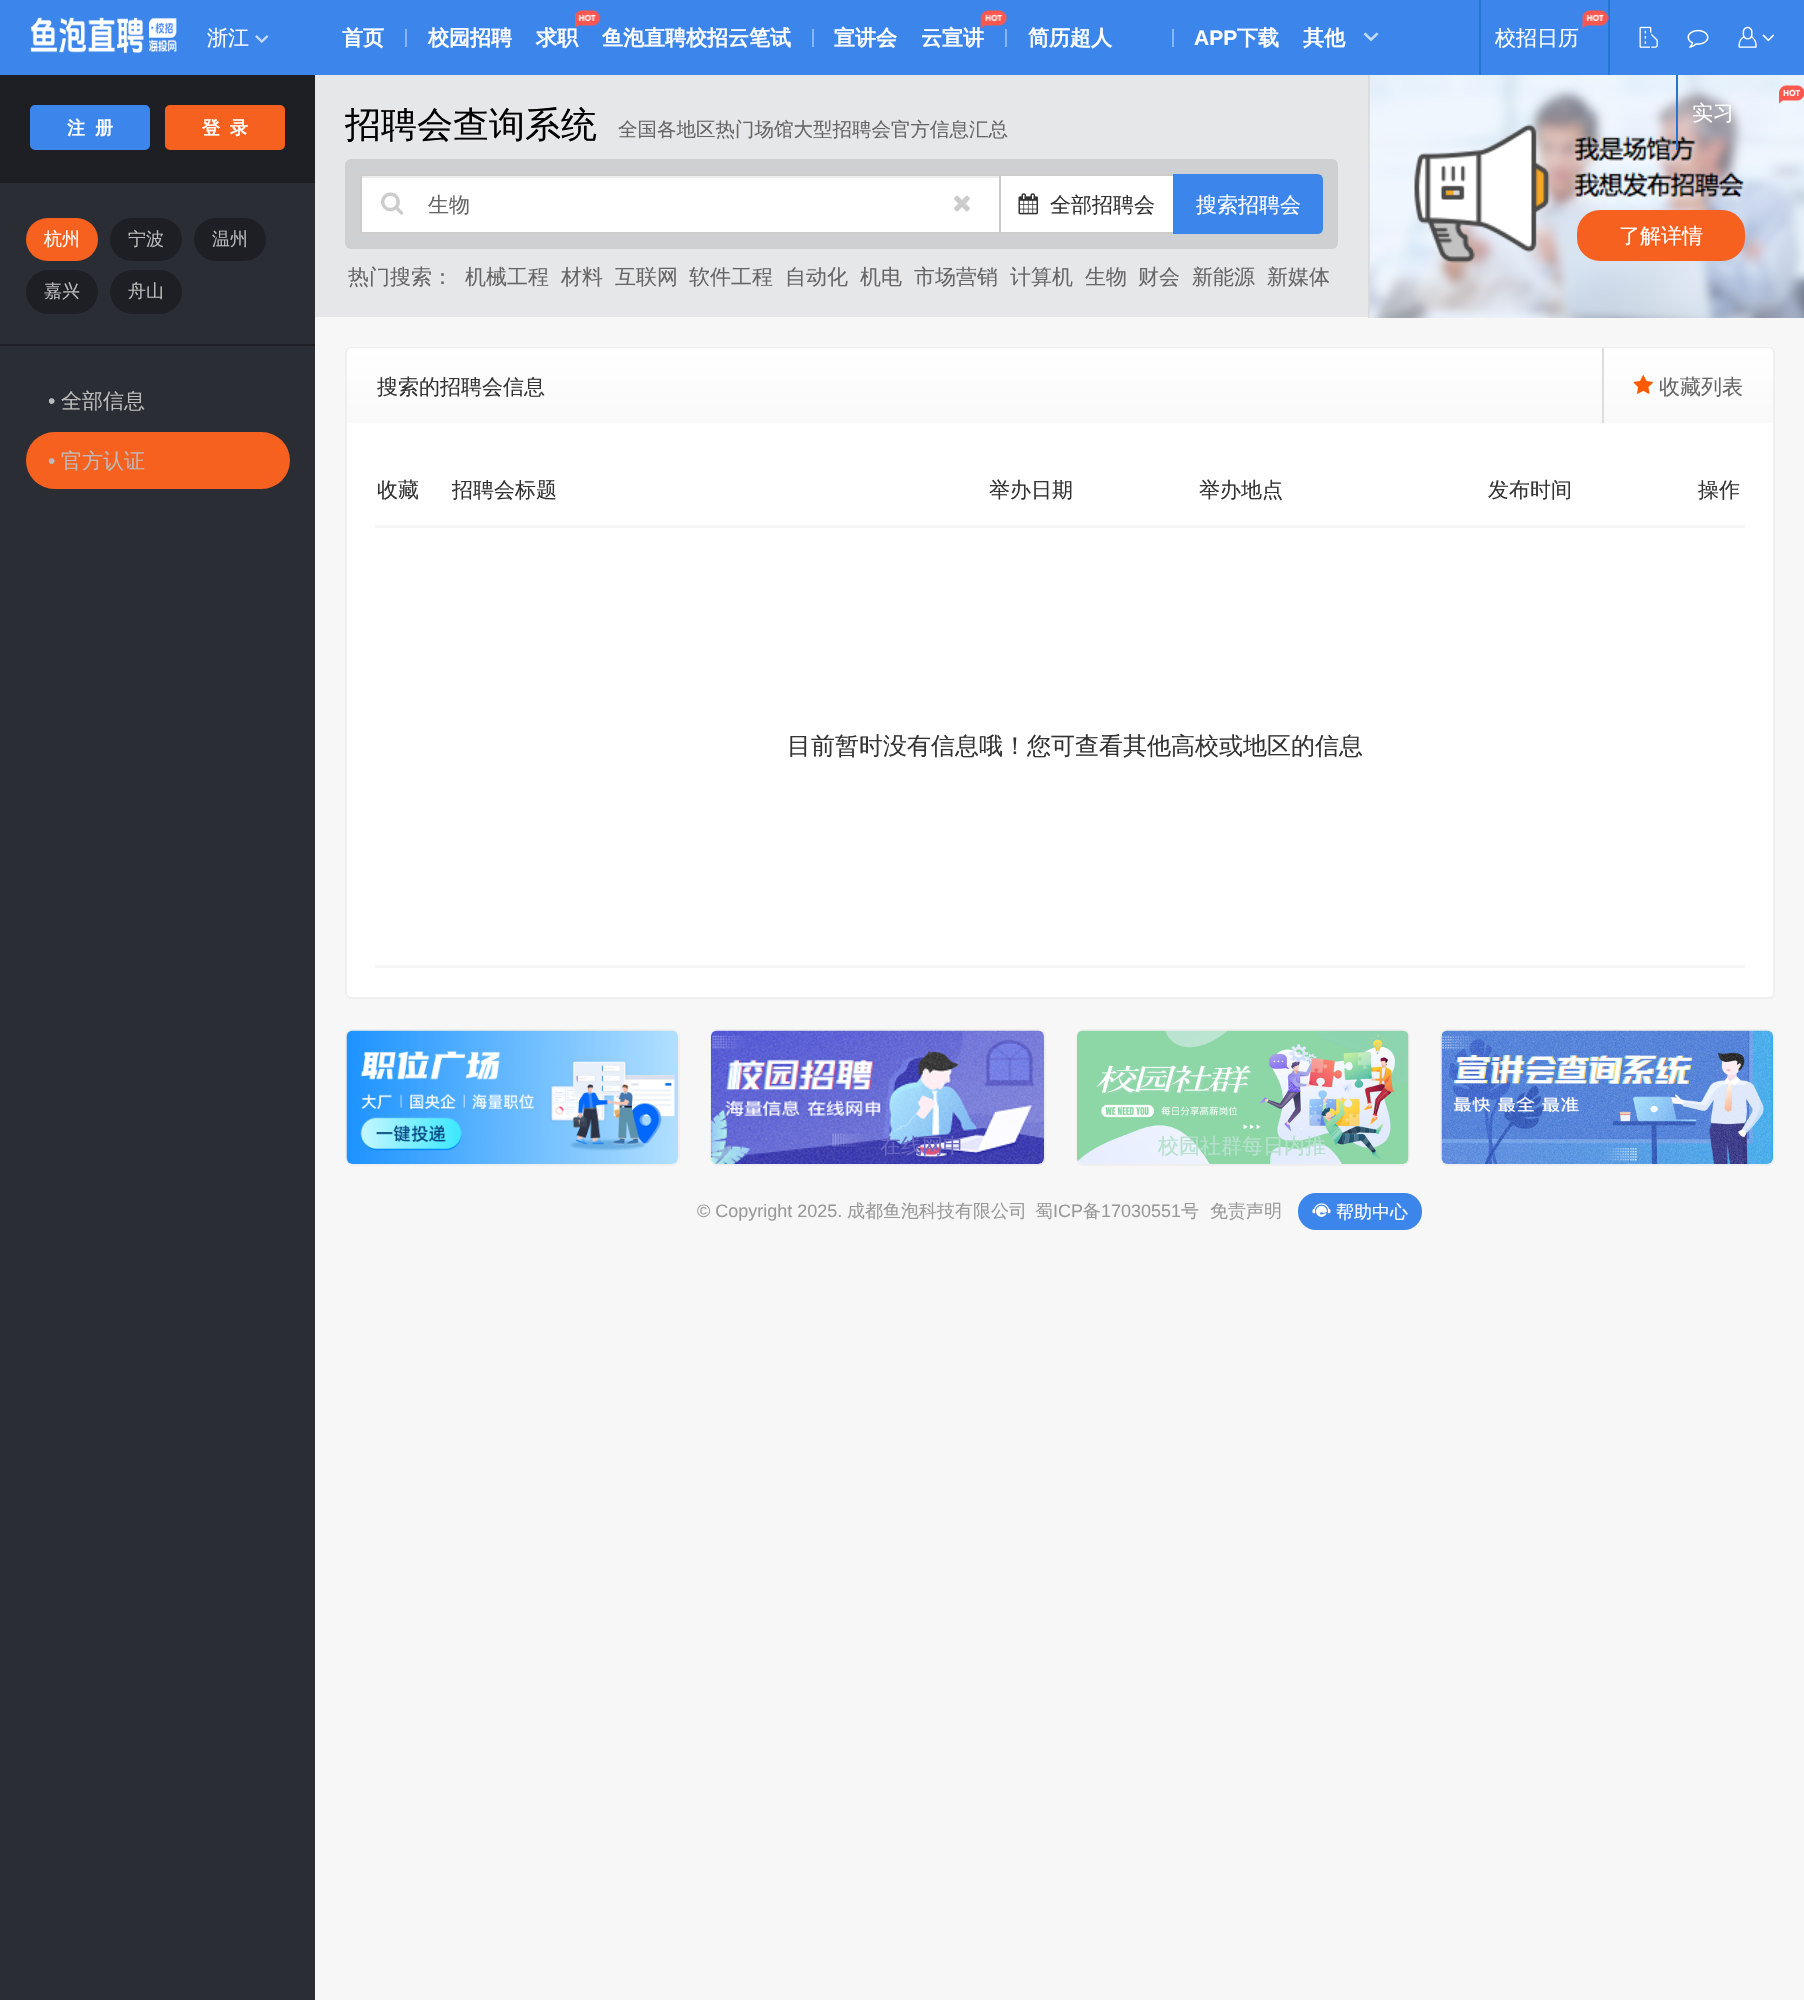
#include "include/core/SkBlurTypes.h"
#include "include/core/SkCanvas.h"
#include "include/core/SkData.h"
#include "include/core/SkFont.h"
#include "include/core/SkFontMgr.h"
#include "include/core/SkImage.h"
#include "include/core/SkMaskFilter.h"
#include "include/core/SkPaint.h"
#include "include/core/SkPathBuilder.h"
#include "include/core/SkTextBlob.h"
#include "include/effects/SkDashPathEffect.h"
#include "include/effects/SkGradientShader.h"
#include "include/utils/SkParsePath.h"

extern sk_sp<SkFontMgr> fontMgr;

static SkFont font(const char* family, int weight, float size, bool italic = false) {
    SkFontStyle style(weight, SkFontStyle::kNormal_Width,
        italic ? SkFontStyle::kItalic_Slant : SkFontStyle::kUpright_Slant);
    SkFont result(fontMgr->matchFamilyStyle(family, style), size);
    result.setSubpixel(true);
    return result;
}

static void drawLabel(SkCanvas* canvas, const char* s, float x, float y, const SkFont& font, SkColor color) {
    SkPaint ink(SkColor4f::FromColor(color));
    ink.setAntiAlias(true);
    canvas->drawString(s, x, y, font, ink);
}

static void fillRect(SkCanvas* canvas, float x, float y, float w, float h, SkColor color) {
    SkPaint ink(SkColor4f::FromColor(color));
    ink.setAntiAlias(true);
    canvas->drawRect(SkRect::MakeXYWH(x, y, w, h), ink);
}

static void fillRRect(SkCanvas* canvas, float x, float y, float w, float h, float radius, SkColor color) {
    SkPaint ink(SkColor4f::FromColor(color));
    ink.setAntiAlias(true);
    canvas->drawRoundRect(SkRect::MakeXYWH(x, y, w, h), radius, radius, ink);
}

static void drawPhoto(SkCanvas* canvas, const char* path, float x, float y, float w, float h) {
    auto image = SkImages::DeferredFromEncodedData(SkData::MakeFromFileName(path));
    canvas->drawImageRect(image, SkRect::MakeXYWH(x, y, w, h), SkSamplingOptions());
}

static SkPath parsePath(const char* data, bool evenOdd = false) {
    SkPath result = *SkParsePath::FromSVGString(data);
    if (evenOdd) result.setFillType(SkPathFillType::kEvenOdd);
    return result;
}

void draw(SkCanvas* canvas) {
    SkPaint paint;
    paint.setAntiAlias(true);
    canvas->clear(0xFFF7F7F7);
    fillRect(canvas, 0, 0, 1804, 75, 0xFF3B85EB);
    drawPhoto(canvas, "assets/img1.png", 30, 17, 147, 37);
    SkFont font1 = font("WenQuanYi Zen Hei", 500, 21);
    drawLabel(canvas, "浙江", 207, 45, font1, 0xFFFFFFFF);
    drawPhoto(canvas, "assets/img2.png", 255, 35, 14, 8);
    SkFont font2 = font("WenQuanYi Zen Hei", 700, 21);
    drawLabel(canvas, "首页", 342, 45, font2, 0xFFFFFFFF);
    fillRect(canvas, 405, 29, 2, 18, 0xFF84B7FF);
    drawLabel(canvas, "校园招聘", 428, 45, font2, 0xFFFFFFFF);
    drawLabel(canvas, "求职", 536, 45, font2, 0xFFFFFFFF);
    drawPhoto(canvas, "assets/img3.png", 575, 10, 26, 19);
    drawLabel(canvas, "鱼泡直聘校招云笔试", 602, 45, font2, 0xFFFFFFFF);
    fillRect(canvas, 812, 29, 2, 18, 0xFF84B7FF);
    drawLabel(canvas, "宣讲会", 834, 45, font2, 0xFFFFFFFF);
    drawLabel(canvas, "云宣讲", 921, 45, font2, 0xFFFFFFFF);
    drawPhoto(canvas, "assets/img4.png", 980, 10, 27, 19);
    fillRect(canvas, 1005, 29, 2, 18, 0xFF84B7FF);
    drawLabel(canvas, "简历超人", 1028, 45, font2, 0xFFFFFFFF);
    fillRect(canvas, 1172, 29, 2, 18, 0xFF84B7FF);
    SkFont font3 = font("Liberation Sans", 700, 21);
    drawLabel(canvas, "APP", 1194, 45, font3, 0xFFFFFFFF);
    drawLabel(canvas, "下载", 1237, 45, font2, 0xFFFFFFFF);
    drawLabel(canvas, "其他", 1303, 45, font2, 0xFFFFFFFF);
    drawPhoto(canvas, "assets/img5.png", 1363, 32, 16, 10);
    fillRect(canvas, 1479, 0, 2, 75, 0xFF2475D4);
    fillRect(canvas, 1608, 0, 2, 75, 0xFF2475D4);
    drawPhoto(canvas, "assets/img6.png", 1582, 10, 27, 19);
    drawLabel(canvas, "校招日历", 1495, 45, font1, 0xFFFFFFFF);
    drawPhoto(canvas, "assets/img7.png", 1639, 26, 19, 22);
    drawPhoto(canvas, "assets/img8.png", 1687, 29, 22, 19);
    drawPhoto(canvas, "assets/img9.png", 1738, 26, 19, 22);
    drawPhoto(canvas, "assets/img10.png", 1762, 34, 13, 8);
    fillRect(canvas, 1368, 75, 2, 243, 0xFFDBDBDB);
    drawPhoto(canvas, "assets/img15.png", 1369, 75, 435, 243);
    fillRect(canvas, 1676, 75, 2, 75, 0xFF2475D4);
    drawPhoto(canvas, "assets/img11.png", 1779, 85, 25, 19);
    drawLabel(canvas, "实习", 1692, 120, font1, 0xFFFFFFFF);
    fillRect(canvas, 0, 183, 315, 1817, 0xFF2A2D33);
    fillRect(canvas, 0, 75, 315, 108, 0xFF1D1F24);
    paint.setColor(0xFF3B85EB);
    canvas->drawRoundRect(SkRect::MakeXYWH(31, 106, 118, 43), 4, 4, paint);
    paint.setStroke(true);
    paint.setStrokeWidth(2);
    canvas->drawRoundRect(SkRect::MakeXYWH(31, 106, 118, 43), 4, 4, paint);
    SkFont font4 = font("WenQuanYi Zen Hei", 700, 18);
    drawLabel(canvas, "注", 67, 134, font4, 0xFFFFFFFF);
    drawLabel(canvas, "册", 95, 134, font4, 0xFFFFFFFF);
    paint.setStroke(false);
    paint.setColor(0xFFF76120);
    canvas->drawRoundRect(SkRect::MakeXYWH(166, 106, 118, 43), 4, 4, paint);
    paint.setStroke(true);
    canvas->drawRoundRect(SkRect::MakeXYWH(166, 106, 118, 43), 4, 4, paint);
    drawLabel(canvas, "登", 202, 134, font4, 0xFFFFFFFF);
    drawLabel(canvas, "录", 230, 134, font4, 0xFFFFFFFF);
    fillRect(canvas, 0, 344, 315, 2, 0xFF1D1F24);
    fillRRect(canvas, 26, 218, 72, 43, 21.5f, 0xFFF76120);
    SkFont font5 = font("WenQuanYi Zen Hei", 500, 18);
    drawLabel(canvas, "杭州", 44, 245, font5, 0xFFFFFFFF);
    fillRRect(canvas, 110, 218, 72, 43, 21.5f, 0xFF1D1F24);
    drawLabel(canvas, "宁波", 128, 245, font5, 0xFFBBBBBB);
    fillRRect(canvas, 194, 218, 72, 43, 21.5f, 0xFF1D1F24);
    drawLabel(canvas, "温州", 212, 245, font5, 0xFFBBBBBB);
    fillRRect(canvas, 26, 270, 72, 44, 22, 0xFF1D1F24);
    drawLabel(canvas, "嘉兴", 44, 297, font5, 0xFFBBBBBB);
    fillRRect(canvas, 110, 270, 72, 44, 22, 0xFF1D1F24);
    drawLabel(canvas, "舟山", 128, 297, font5, 0xFFBBBBBB);
    SkFont font6 = font("Liberation Sans", 400, 21);
    drawLabel(canvas, "•", 48, 408, font6, 0xFFBBBBBB);
    drawLabel(canvas, "全部信息", 61, 408, font1, 0xFFBBBBBB);
    fillRRect(canvas, 26, 432, 264, 57, 28.5f, 0xFFF76120);
    drawLabel(canvas, "•", 48, 468, font6, 0xFFBBBBBB);
    drawLabel(canvas, "官方认证", 61, 468, font1, 0xFFBBBBBB);
    fillRect(canvas, 315, 75, 1053, 242, 0xFFE6E7E8);
    SkFont font7 = font("WenQuanYi Zen Hei", 500, 36);
    drawLabel(canvas, "招聘会查询系统", 345, 137, font7, 0xFF000000);
    SkFont font8 = font("WenQuanYi Zen Hei", 500, 19.5f);
    drawLabel(canvas, "全国各地区热门场馆大型招聘会官方信息汇总", 618, 136, font8, 0xFF666666);
    fillRRect(canvas, 345, 159, 993, 90, 6, 0xFFCFD0D1);
    fillRect(canvas, 362, 178, 637, 54, 0xFFFFFFFF);
    fillRect(canvas, 362, 176, 639, 2, 0xFFECECEC);
    paint.setColor(0xFFCCCCCC);
    canvas->drawRect(SkRect::MakeXYWH(361, 175, 640, 58), paint);
    drawPhoto(canvas, "assets/img12.png", 381, 192, 23, 23);
    drawLabel(canvas, "生物", 428, 212, font1, 0xFF666666);
    drawPhoto(canvas, "assets/img13.png", 954, 195, 16, 17);
    paint.setStroke(false);
    paint.setColor(0xFFFFFFFF);
    canvas->drawRect(SkRect::MakeXYWH(1000, 175, 174, 58), paint);
    paint.setStroke(true);
    paint.setColor(0xFFCCCCCC);
    canvas->drawRect(SkRect::MakeXYWH(1000, 175, 174, 58), paint);
    drawPhoto(canvas, "assets/img14.png", 1018, 193, 20, 22);
    drawLabel(canvas, "全部招聘会", 1050, 212, font1, 0xFF333333);
    paint.setStroke(false);
    paint.setColor(0xFF3B85EB);
    canvas->drawPath(parsePath("M1174 175H1317C1320 175 1322 177 1322 180V228C1322 231 1320 233 1317 233H1174Z"), paint);
    paint.setStroke(true);
    canvas->drawPath(parsePath("M1174 175H1317C1320 175 1322 177 1322 180V228C1322 231 1320 233 1317 233H1174Z"), paint);
    drawLabel(canvas, "搜索招聘会", 1196, 212, font1, 0xFFFFFFFF);
    drawLabel(canvas, "热门搜索：", 348, 284, font1, 0xFF666666);
    drawLabel(canvas, "机械工程", 465, 284, font1, 0xFF666666);
    drawLabel(canvas, "材料", 561, 284, font1, 0xFF666666);
    drawLabel(canvas, "互联网", 615, 284, font1, 0xFF666666);
    drawLabel(canvas, "软件工程", 689, 284, font1, 0xFF666666);
    drawLabel(canvas, "自动化", 785, 284, font1, 0xFF666666);
    drawLabel(canvas, "机电", 860, 284, font1, 0xFF666666);
    drawLabel(canvas, "市场营销", 914, 284, font1, 0xFF666666);
    drawLabel(canvas, "计算机", 1010, 284, font1, 0xFF666666);
    drawLabel(canvas, "生物", 1085, 284, font1, 0xFF666666);
    drawLabel(canvas, "财会", 1138, 284, font1, 0xFF666666);
    drawLabel(canvas, "新能源", 1192, 284, font1, 0xFF666666);
    drawLabel(canvas, "新媒体", 1267, 284, font1, 0xFF666666);
    paint.setStroke(false);
    paint.setColor(0xFFF76120);
    canvas->drawRoundRect(SkRect::MakeXYWH(1578, 211, 166, 49), 22, 22, paint);
    paint.setStroke(true);
    canvas->drawRoundRect(SkRect::MakeXYWH(1578, 211, 166, 49), 22, 22, paint);
    drawLabel(canvas, "了解详情", 1619, 243, font1, 0xFFFFFFFF);
    paint.setStroke(false);
    paint.setColor(0xFFFFFFFF);
    canvas->drawRoundRect(SkRect::MakeXYWH(346, 348, 1428, 650), 5, 5, paint);
    paint.setStroke(true);
    paint.setColor(0xFFEFEFEF);
    canvas->drawRoundRect(SkRect::MakeXYWH(346, 348, 1428, 650), 5, 5, paint);
    paint.setStroke(false);
    {
        const SkColor colors[] = {0xFFFFFFFF, 0xFFF9F9F9};
        const float stops[] = {0, 1};
        const SkPoint ends[] = {{347, 348}, {347, 423}};
        paint.setShader(SkGradientShader::MakeLinear(ends, colors, stops, 2, SkTileMode::kClamp));
        paint.setAlpha(255);
    }
    canvas->drawPath(parsePath("M352 348H1768C1771 348 1773 350 1773 353V423H347V353C347 350 349 348 352 348Z"), paint);
    drawLabel(canvas, "搜索的招聘会信息", 377, 394, font1, 0xFF333333);
    fillRect(canvas, 1602, 348, 2, 75, 0xFFDDDDDD);
    drawPhoto(canvas, "assets/img16.png", 1633, 375, 20, 19);
    drawLabel(canvas, "收藏列表", 1659, 394, font1, 0xFF666666);
    drawLabel(canvas, "收藏", 377, 497, font1, 0xFF333333);
    drawLabel(canvas, "招聘会标题", 452, 497, font1, 0xFF333333);
    drawLabel(canvas, "举办日期", 989, 497, font1, 0xFF333333);
    drawLabel(canvas, "举办地点", 1199, 497, font1, 0xFF333333);
    drawLabel(canvas, "发布时间", 1488, 497, font1, 0xFF333333);
    fillRect(canvas, 375, 525, 1370, 3, 0xFFF6F6F6);
    drawLabel(canvas, "操作", 1698, 497, font1, 0xFF333333);
    fillRect(canvas, 375, 965, 1370, 3, 0xFFF6F6F6);
    SkFont font9 = font("WenQuanYi Zen Hei", 500, 24);
    drawLabel(canvas, "目前暂时没有信息哦！您可查看其他高校或地区的信息", 787, 754, font9, 0xFF333333);
    paint.setStroke(true);
    paint.setShader(nullptr);
    paint.setColor(0xFFEFEFEF);
    canvas->drawRoundRect(SkRect::MakeXYWH(346, 1030, 333, 135), 7, 7, paint);
    drawPhoto(canvas, "assets/img17.png", 346, 1030, 332, 134);
    canvas->drawRoundRect(SkRect::MakeXYWH(711, 1030, 334, 135), 7, 7, paint);
    drawPhoto(canvas, "assets/img18.png", 711, 1030, 333, 134);
    drawLabel(canvas, "在线网申", 880, 1153, font1, 0xFF6967C3);
    canvas->drawRoundRect(SkRect::MakeXYWH(1077, 1030, 332, 135), 7, 7, paint);
    drawPhoto(canvas, "assets/img19.png", 1077, 1030, 332, 134);
    drawLabel(canvas, "校园社群每日内推", 1158, 1153, font1, 0xFFB5E1CC);
    canvas->drawRoundRect(SkRect::MakeXYWH(1441, 1030, 333, 135), 7, 7, paint);
    drawPhoto(canvas, "assets/img20.png", 1441, 1030, 332, 134);
    SkFont font10 = font("Liberation Sans", 400, 18);
    drawLabel(canvas, "© Copyright 2025.", 697, 1217, font10, 0xFF999999);
    drawLabel(canvas, "成都鱼泡科技有限公司", 847, 1217, font5, 0xFF999999);
    drawLabel(canvas, "蜀", 1035, 1217, font5, 0xFF999999);
    drawLabel(canvas, "ICP", 1053, 1217, font10, 0xFF999999);
    drawLabel(canvas, "备", 1083, 1217, font5, 0xFF999999);
    drawLabel(canvas, "17030551", 1101, 1217, font10, 0xFF999999);
    drawLabel(canvas, "号", 1181, 1217, font5, 0xFF999999);
    drawLabel(canvas, "免责声明", 1210, 1217, font5, 0xFF999999);
    paint.setStroke(false);
    paint.setColor(0xFF3B85EB);
    canvas->drawRoundRect(SkRect::MakeXYWH(1299, 1194, 122, 35), 17, 17, paint);
    paint.setStroke(true);
    canvas->drawRoundRect(SkRect::MakeXYWH(1299, 1194, 122, 35), 17, 17, paint);
    drawPhoto(canvas, "assets/img21.png", 1312, 1203, 19, 14);
    drawLabel(canvas, "帮助中心", 1336, 1218, font5, 0xFFFFFFFF);
}
